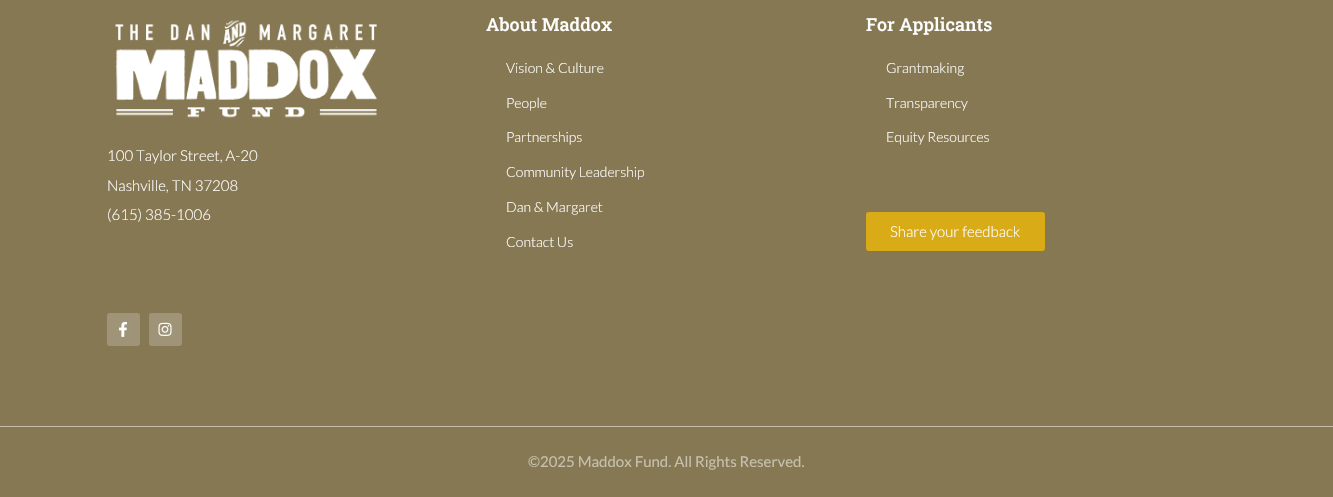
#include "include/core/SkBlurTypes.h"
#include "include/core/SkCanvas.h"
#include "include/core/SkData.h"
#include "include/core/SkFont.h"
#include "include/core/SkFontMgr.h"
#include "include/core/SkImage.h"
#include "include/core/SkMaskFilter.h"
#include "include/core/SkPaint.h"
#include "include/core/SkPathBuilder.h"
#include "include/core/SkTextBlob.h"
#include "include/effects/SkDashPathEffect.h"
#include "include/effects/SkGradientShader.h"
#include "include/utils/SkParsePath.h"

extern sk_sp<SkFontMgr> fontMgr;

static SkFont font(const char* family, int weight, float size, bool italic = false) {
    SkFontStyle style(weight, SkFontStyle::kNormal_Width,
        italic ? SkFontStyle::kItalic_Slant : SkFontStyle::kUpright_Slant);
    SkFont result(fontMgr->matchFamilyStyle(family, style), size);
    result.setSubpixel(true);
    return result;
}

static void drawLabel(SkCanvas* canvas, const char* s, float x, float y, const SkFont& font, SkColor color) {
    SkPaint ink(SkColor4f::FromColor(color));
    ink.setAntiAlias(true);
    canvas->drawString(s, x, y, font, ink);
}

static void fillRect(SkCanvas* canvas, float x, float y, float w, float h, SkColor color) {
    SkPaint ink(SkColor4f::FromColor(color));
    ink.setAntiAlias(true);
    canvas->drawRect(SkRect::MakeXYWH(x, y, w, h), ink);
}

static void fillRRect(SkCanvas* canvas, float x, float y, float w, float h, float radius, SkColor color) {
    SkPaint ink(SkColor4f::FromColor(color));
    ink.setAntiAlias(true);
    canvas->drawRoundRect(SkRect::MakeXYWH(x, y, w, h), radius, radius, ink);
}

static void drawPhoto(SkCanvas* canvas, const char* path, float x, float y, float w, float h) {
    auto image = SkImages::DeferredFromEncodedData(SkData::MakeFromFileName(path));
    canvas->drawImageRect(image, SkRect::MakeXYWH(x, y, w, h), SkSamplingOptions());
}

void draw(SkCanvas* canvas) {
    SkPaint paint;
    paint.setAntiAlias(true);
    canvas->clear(0xFF867853);
    drawPhoto(canvas, "assets/img1.png", 115, 20, 262, 98);
    SkFont font1 = font("Lato", 300, 15);
    drawLabel(canvas, "100 Taylor Street, A-20", 107, 161, font1, 0xFFFFFFFF);
    drawLabel(canvas, "Nashville, TN 37208", 107, 191, font1, 0xFFFFFFFF);
    drawLabel(canvas, "(615) 385-1006", 107, 220, font1, 0xFFFFFFFF);
    fillRRect(canvas, 107, 313, 33, 33, 3, 0xFF9F9477);
    drawPhoto(canvas, "assets/img2.png", 119, 321, 8, 16);
    fillRRect(canvas, 149, 313, 33, 33, 3, 0xFF9F9477);
    drawPhoto(canvas, "assets/img3.png", 158, 322, 14, 14);
    SkFont font2 = font("Roboto Slab", 500, 18);
    drawLabel(canvas, "About Maddox", 486, 31, font2, 0xFFFFFFFF);
    SkFont font3 = font("Lato", 300, 14);
    drawLabel(canvas, "Vision & Culture", 506, 73, font3, 0xFFFFFFFF);
    drawLabel(canvas, "People", 506, 108, font3, 0xFFFFFFFF);
    drawLabel(canvas, "Partnerships", 506, 142, font3, 0xFFFFFFFF);
    drawLabel(canvas, "Community Leadership", 506, 177, font3, 0xFFFFFFFF);
    drawLabel(canvas, "Dan & Margaret", 506, 212, font3, 0xFFFFFFFF);
    drawLabel(canvas, "Contact Us", 506, 247, font3, 0xFFFFFFFF);
    drawLabel(canvas, "For Applicants", 866, 31, font2, 0xFFFFFFFF);
    drawLabel(canvas, "Grantmaking", 886, 73, font3, 0xFFFFFFFF);
    drawLabel(canvas, "Transparency", 886, 108, font3, 0xFFFFFFFF);
    drawLabel(canvas, "Equity Resources", 886, 142, font3, 0xFFFFFFFF);
    fillRRect(canvas, 866, 212, 179, 39, 3, 0xFFD8AB17);
    drawLabel(canvas, "Share your feedback", 890, 237, font1, 0xFFFFFFFF);
    fillRect(canvas, 0, 426, 1333, 1, 0xFFC3BCA9);
    SkFont font4 = font("Lato", 400, 15);
    drawLabel(canvas, "©2025 Maddox Fund. All Rights Reserved.", 528, 467, font4, 0xFFC6C0AE);
}
